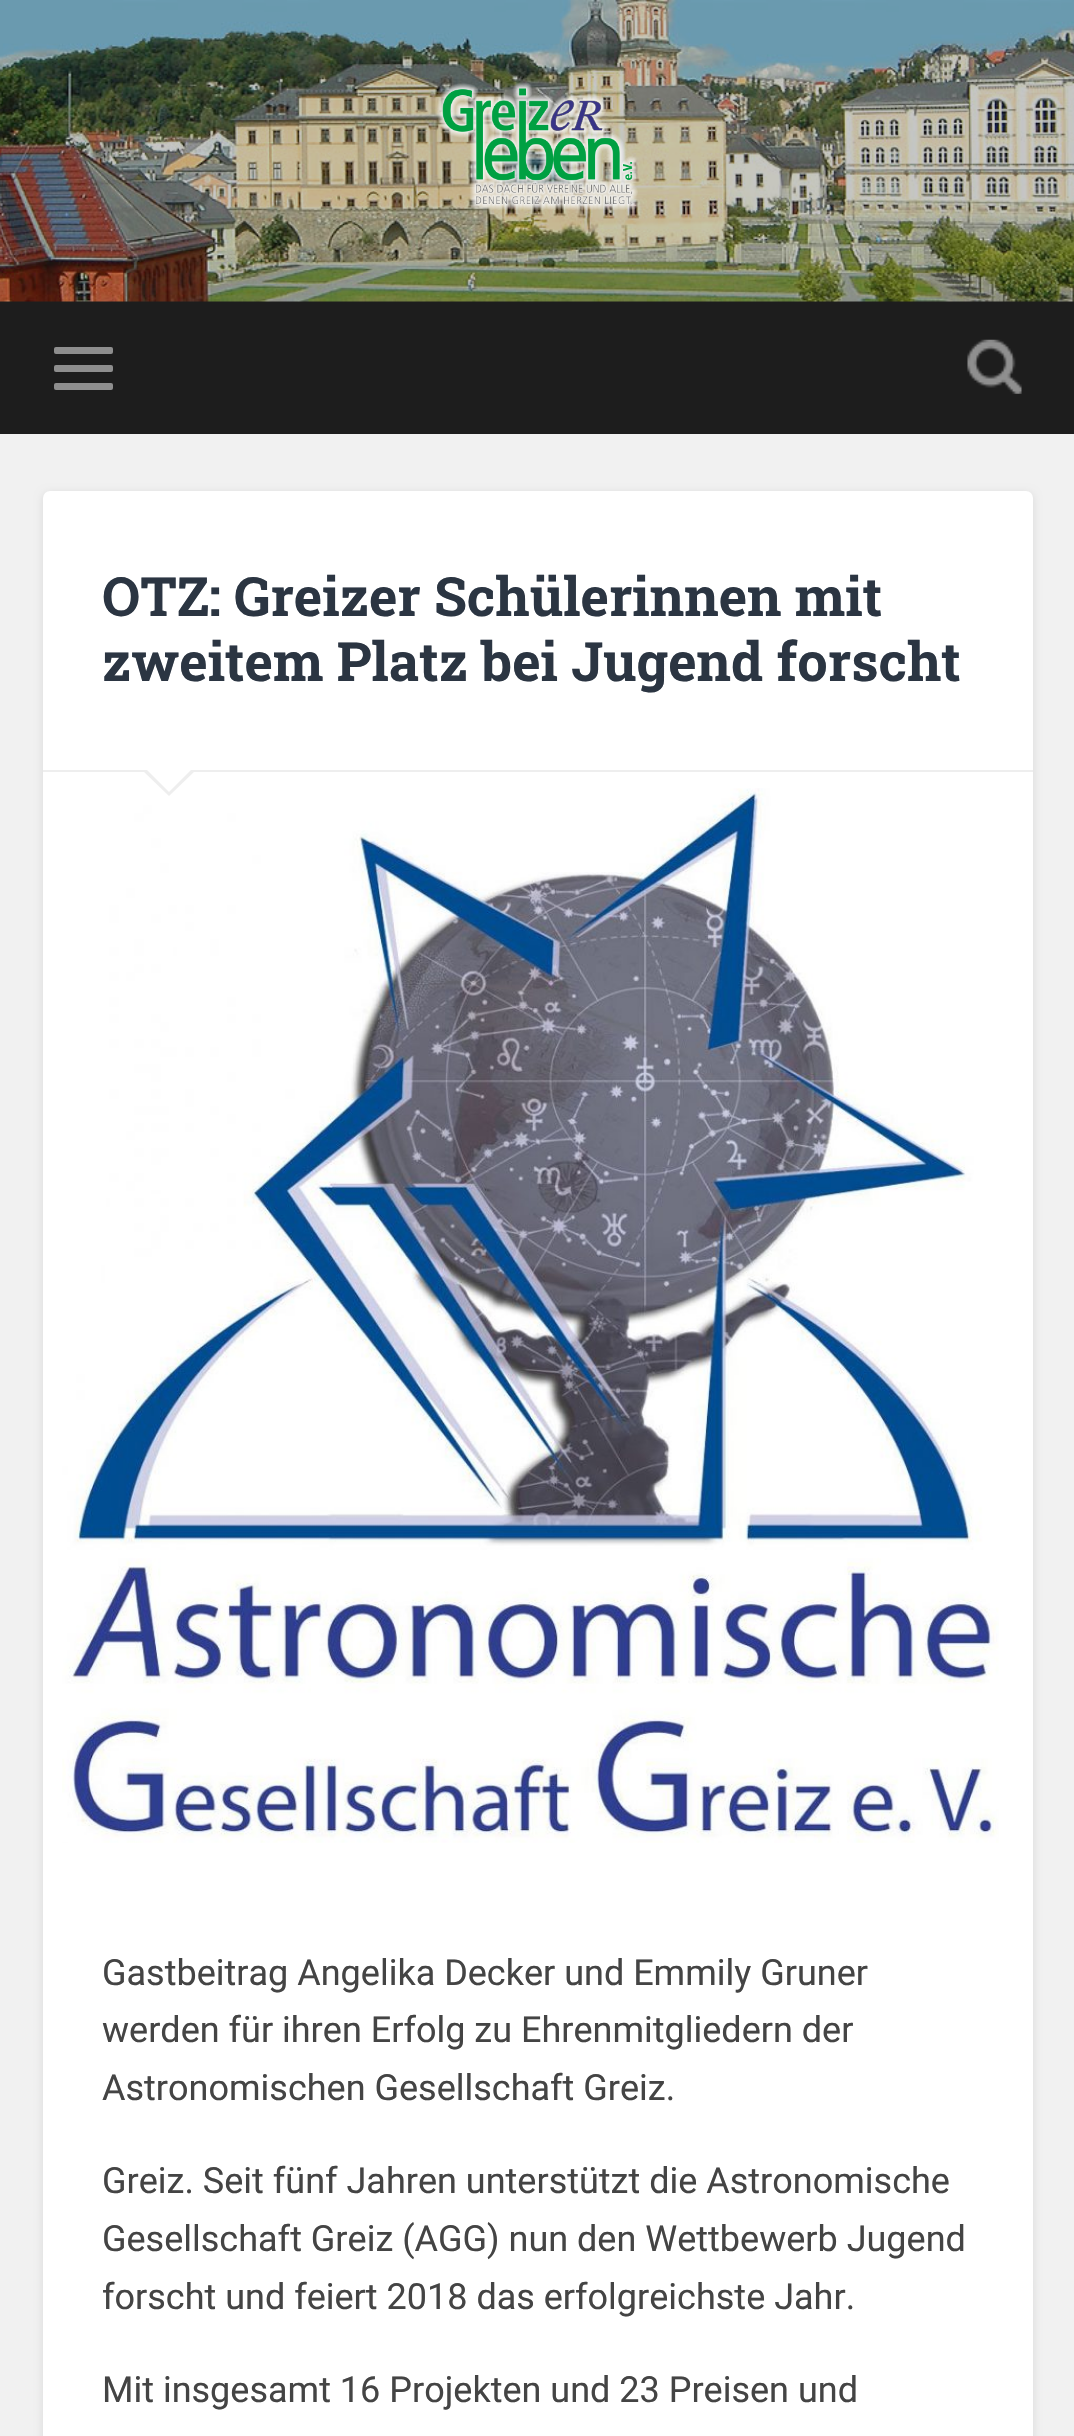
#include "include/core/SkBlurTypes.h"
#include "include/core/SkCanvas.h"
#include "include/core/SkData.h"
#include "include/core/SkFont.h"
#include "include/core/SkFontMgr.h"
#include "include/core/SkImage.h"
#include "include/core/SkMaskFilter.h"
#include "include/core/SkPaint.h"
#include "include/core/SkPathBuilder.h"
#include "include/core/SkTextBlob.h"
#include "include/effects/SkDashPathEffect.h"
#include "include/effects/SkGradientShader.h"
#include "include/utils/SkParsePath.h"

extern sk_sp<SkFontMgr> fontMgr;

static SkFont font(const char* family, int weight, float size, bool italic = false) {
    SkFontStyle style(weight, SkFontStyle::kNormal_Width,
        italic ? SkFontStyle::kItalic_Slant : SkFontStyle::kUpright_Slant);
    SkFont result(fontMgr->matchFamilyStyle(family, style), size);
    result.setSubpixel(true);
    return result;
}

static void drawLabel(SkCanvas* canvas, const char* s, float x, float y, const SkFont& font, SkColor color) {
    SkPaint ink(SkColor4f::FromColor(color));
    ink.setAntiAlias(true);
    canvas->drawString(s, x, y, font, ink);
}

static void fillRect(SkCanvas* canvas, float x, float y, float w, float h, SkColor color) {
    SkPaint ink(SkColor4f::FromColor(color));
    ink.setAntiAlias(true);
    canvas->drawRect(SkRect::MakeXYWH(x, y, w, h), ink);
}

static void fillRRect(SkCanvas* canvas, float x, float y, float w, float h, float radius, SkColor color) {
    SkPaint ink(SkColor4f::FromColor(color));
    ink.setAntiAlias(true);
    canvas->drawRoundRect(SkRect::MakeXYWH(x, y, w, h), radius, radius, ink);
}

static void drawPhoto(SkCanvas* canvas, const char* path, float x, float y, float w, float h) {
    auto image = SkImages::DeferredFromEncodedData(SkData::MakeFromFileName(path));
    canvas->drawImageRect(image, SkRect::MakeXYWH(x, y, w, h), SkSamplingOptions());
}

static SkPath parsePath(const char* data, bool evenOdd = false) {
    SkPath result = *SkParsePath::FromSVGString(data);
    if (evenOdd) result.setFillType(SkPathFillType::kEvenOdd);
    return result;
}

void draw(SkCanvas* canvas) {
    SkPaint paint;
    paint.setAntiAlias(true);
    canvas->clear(0xFFF1F1F1);
    fillRect(canvas, 0, 301, 1074, 133, 0xFF1D1D1D);
    drawPhoto(canvas, "assets/img1.png", 0, 0, 1074, 302);
    drawPhoto(canvas, "assets/img2.png", 437, 82, 201, 128);
    fillRRect(canvas, 54, 347, 59, 7, 2, 0xFF8E8E8E);
    fillRRect(canvas, 54, 365, 59, 7, 2, 0xFF8E8E8E);
    fillRRect(canvas, 54, 383, 59, 7, 2, 0xFF8E8E8E);
    drawPhoto(canvas, "assets/img3.png", 967, 339, 55, 55);
    paint.setColor(0x1A000000);
    paint.setMaskFilter(SkMaskFilter::MakeBlur(kNormal_SkBlurStyle, 4.5f));
    canvas->drawRoundRect(SkRect::MakeXYWH(43, 493, 990, 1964), 7, 7, paint);
    paint.setMaskFilter(nullptr);
    fillRRect(canvas, 43, 491, 990, 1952, 7, 0xFFFFFFFF);
    fillRect(canvas, 43, 770, 990, 2, 0xFFEEEEEE);
    SkFont font1 = font("Roboto Slab", 700, 54);
    drawLabel(canvas, "OTZ: Greizer Schülerinnen mit", 102, 616, font1, 0xFF2B3542);
    drawLabel(canvas, "zweitem Platz bei Jugend forscht", 102, 681, font1, 0xFF2B3542);
    drawPhoto(canvas, "assets/img4.png", 62, 788, 937, 1055);
    paint.setColor(0xFFEEEEEE);
    canvas->drawPath(parsePath("M142 770H196L169 796Z"), paint);
    paint.setColor(0xFFFFFFFF);
    canvas->drawPath(parsePath("M144 767H194L169 792Z"), paint);
    SkFont font2 = font("Roboto", 400, 36);
    drawLabel(canvas, "Gastbeitrag Angelika Decker und Emmily Gruner", 102, 1985, font2, 0xFF444444);
    drawLabel(canvas, "werden für ihren Erfolg zu Ehrenmitgliedern der", 102, 2042, font2, 0xFF444444);
    drawLabel(canvas, "Astronomischen Gesellschaft Greiz.", 102, 2100, font2, 0xFF444444);
    drawLabel(canvas, "Greiz. Seit fünf Jahren unterstützt die Astronomische", 102, 2193, font2, 0xFF444444);
    drawLabel(canvas, "Gesellschaft Greiz (AGG) nun den Wettbewerb Jugend", 102, 2251, font2, 0xFF444444);
    drawLabel(canvas, "forscht und feiert 2018 das erfolgreichste Jahr.", 102, 2309, font2, 0xFF444444);
    drawLabel(canvas, "Mit insgesamt 16 Projekten und 23 Preisen und", 102, 2402, font2, 0xFF444444);
}
